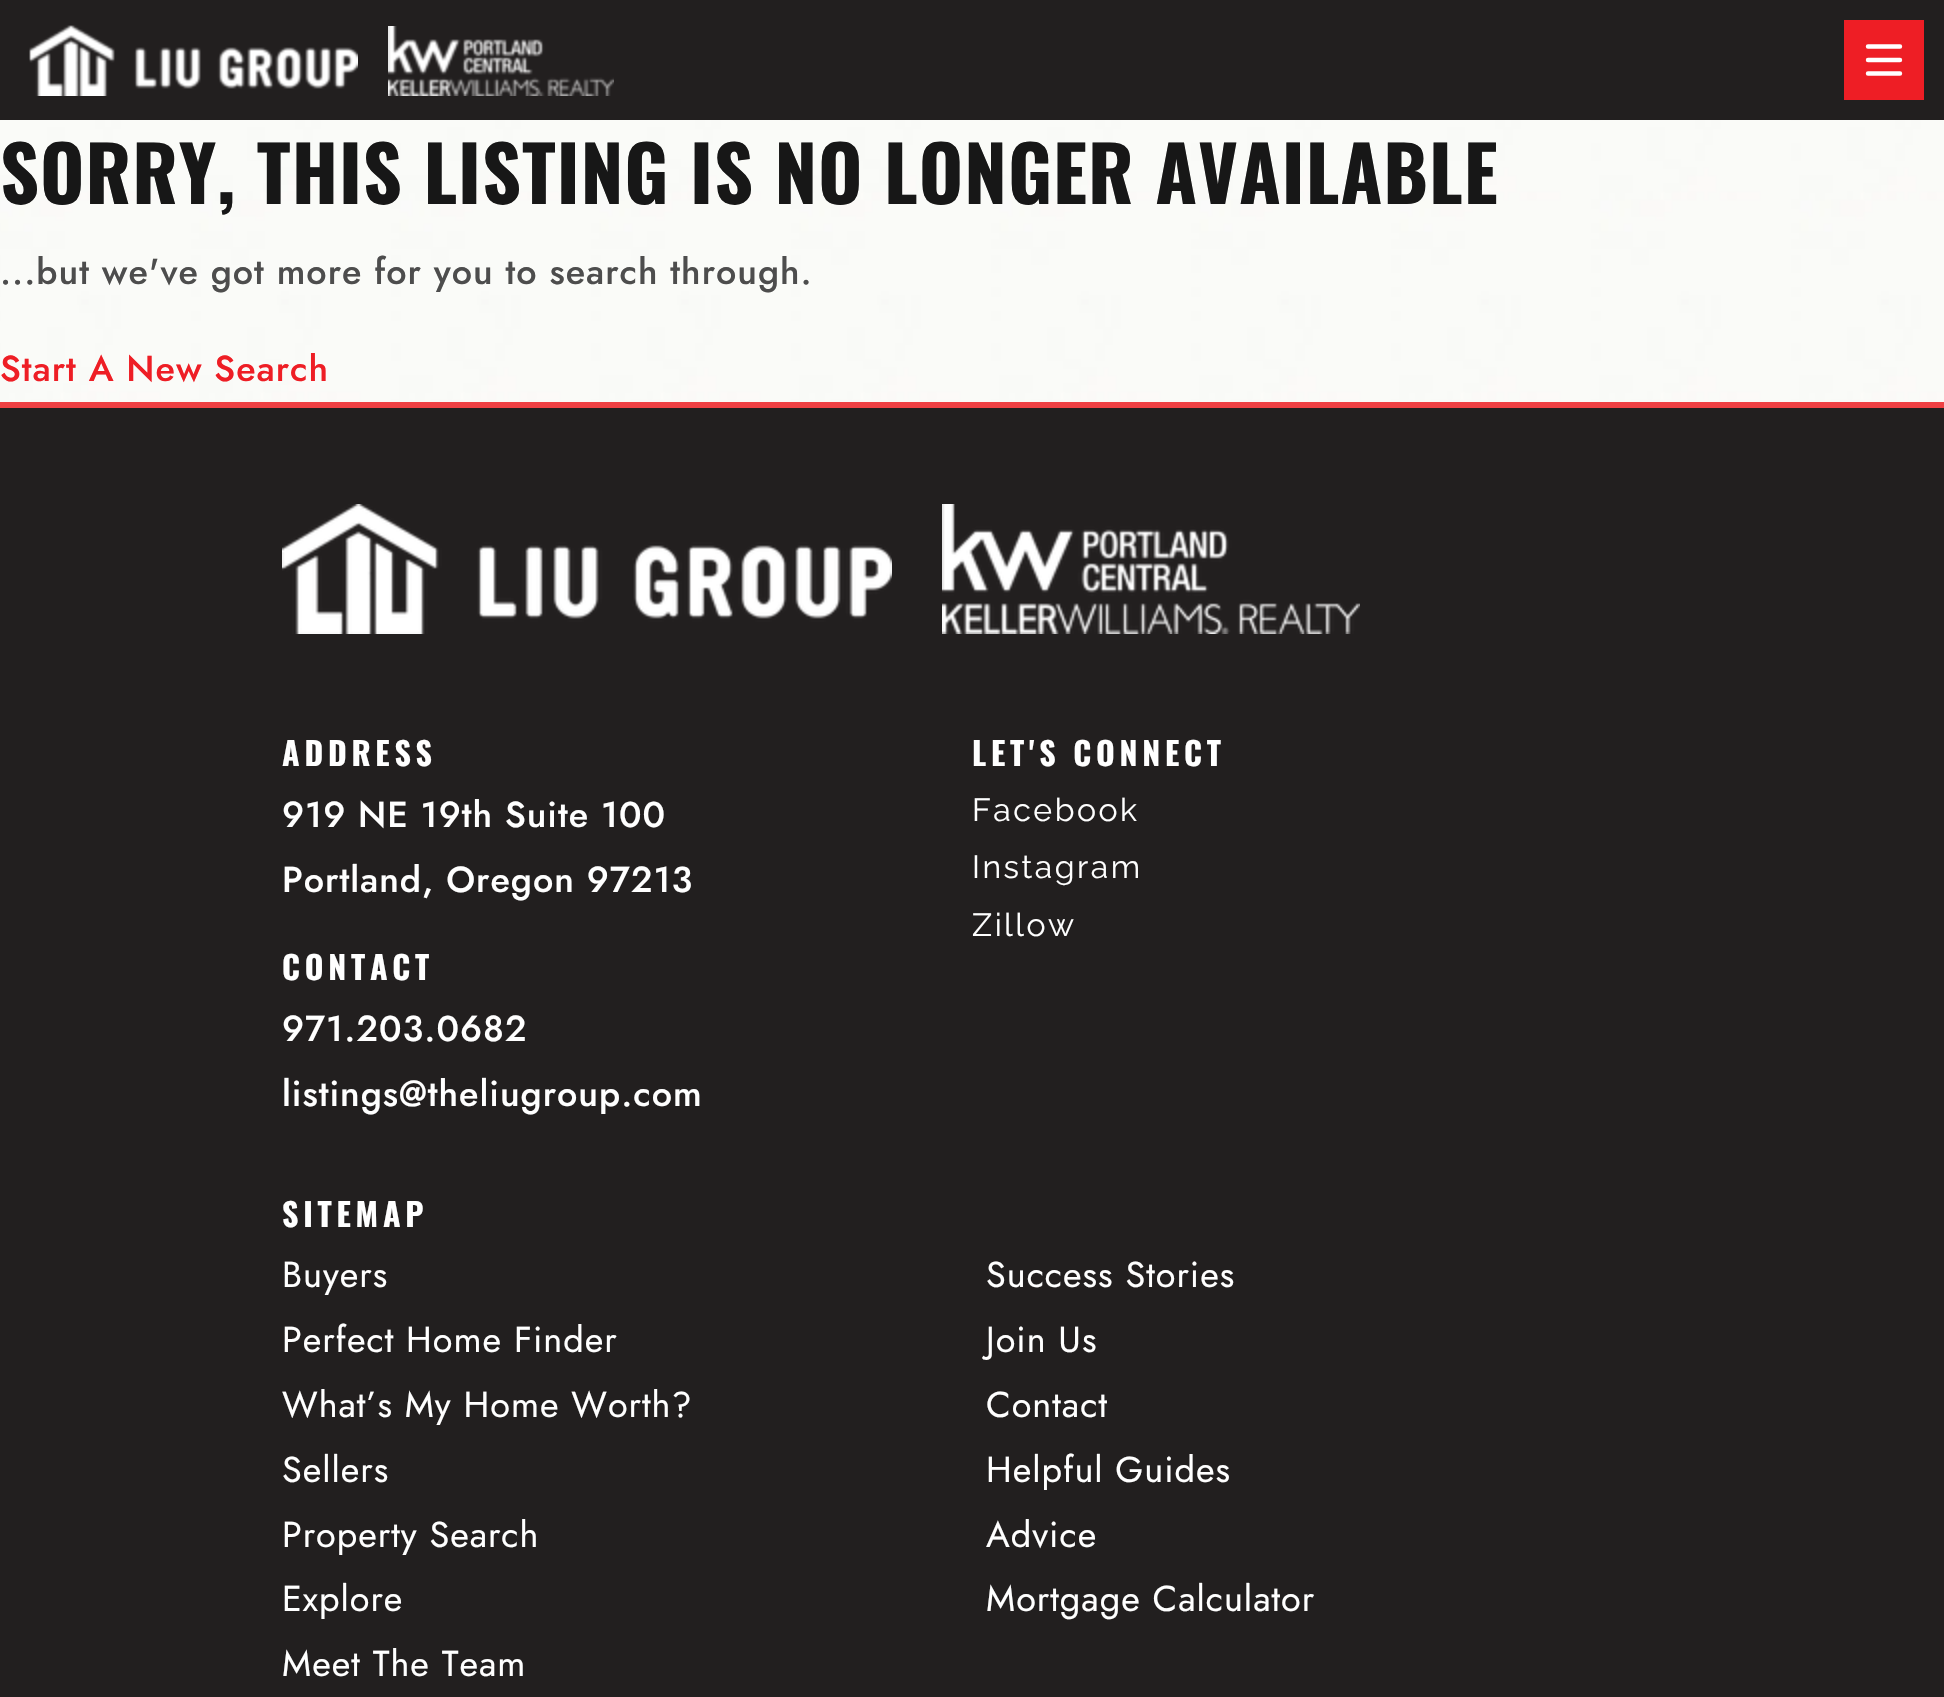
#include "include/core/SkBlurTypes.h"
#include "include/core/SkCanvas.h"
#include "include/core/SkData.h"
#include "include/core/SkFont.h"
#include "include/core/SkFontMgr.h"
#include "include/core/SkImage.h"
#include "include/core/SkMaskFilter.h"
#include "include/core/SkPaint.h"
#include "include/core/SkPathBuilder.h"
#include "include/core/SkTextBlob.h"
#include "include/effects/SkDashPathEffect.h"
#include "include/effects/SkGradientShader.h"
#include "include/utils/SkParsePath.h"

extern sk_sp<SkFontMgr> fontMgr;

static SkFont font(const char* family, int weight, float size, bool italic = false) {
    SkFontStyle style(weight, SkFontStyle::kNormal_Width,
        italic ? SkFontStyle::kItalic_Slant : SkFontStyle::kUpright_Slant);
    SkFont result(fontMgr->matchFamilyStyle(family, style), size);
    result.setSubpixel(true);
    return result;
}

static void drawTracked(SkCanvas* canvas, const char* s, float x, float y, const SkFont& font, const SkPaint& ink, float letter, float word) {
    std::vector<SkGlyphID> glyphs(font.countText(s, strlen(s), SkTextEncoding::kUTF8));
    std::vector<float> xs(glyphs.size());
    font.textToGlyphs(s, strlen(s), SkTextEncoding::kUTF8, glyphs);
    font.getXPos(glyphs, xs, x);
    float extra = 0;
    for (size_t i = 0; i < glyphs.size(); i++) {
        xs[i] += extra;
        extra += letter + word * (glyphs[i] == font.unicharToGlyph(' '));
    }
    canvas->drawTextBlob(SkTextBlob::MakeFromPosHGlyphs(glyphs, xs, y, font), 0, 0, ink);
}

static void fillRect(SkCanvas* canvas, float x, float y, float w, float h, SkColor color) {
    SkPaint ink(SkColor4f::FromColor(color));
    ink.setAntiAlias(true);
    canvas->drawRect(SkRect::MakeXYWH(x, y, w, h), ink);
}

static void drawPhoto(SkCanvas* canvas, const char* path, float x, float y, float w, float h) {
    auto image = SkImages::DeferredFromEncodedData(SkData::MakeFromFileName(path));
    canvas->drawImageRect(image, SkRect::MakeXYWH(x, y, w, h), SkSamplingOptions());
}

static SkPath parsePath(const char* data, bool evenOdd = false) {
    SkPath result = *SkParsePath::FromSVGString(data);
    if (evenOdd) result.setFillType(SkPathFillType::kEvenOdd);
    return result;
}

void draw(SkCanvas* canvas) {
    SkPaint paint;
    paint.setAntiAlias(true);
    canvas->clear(0xFFFFFFFF);
    drawPhoto(canvas, "assets/img1.png", 0, 120, 1944, 282);
    fillRect(canvas, 0, 0, 1944, 120, 0xFF221F1F);
    drawPhoto(canvas, "assets/img2.png", 29, 25, 329, 71);
    drawPhoto(canvas, "assets/img3.png", 388, 26, 226, 70);
    fillRect(canvas, 1844, 20, 80, 80, 0xFFEE1E25);
    paint.setStroke(true);
    paint.setStrokeWidth(4.4f);
    paint.setStrokeCap(SkPaint::kRound_Cap);
    paint.setColor(0xFFFFFFFF);
    canvas->drawPath(parsePath("M1868 46.5H1900M1868 60H1900M1868 73.5H1900"), paint);
    SkFont font1 = font("Oswald", 700, 76);
    paint.setStroke(false);
    paint.setColor(0xFF171717);
    drawTracked(canvas, "SORRY, THIS LISTING IS NO LONGER AVAILABLE", 0, 204, font1, paint, 1, 0);
    SkFont font2 = font("Jost", 500, 36);
    paint.setColor(0xFF4D4D4D);
    drawTracked(canvas, "...but we've got more for you to search through.", 0, 284, font2, paint, 1, 0);
    paint.setColor(0xFFEE1E25);
    drawTracked(canvas, "Start A New Search", 0, 381, font2, paint, 1, 0);
    fillRect(canvas, 0, 408, 1944, 1289, 0xFF221F1F);
    fillRect(canvas, 0, 402, 1944, 6, 0xFFEF4043);
    drawPhoto(canvas, "assets/img4.png", 282, 504, 610, 130);
    drawPhoto(canvas, "assets/img5.png", 942, 504, 418, 130);
    SkFont font3 = font("Oswald", 700, 32);
    paint.setColor(0xFFFFFFFF);
    drawTracked(canvas, "ADDRESS", 282, 766, font3, paint, 4.75f, 0);
    drawTracked(canvas, "919 NE 19th Suite 100", 282, 827, font2, paint, 1, 0);
    drawTracked(canvas, "Portland, Oregon 97213", 282, 892, font2, paint, 1, 0);
    drawTracked(canvas, "CONTACT", 282, 980, font3, paint, 4.75f, 0);
    drawTracked(canvas, "971.203.0682", 282, 1041, font2, paint, 1, 0);
    drawTracked(canvas, "listings@theliugroup.com", 282, 1106, font2, paint, 1, 0);
    drawTracked(canvas, "LET'S CONNECT", 972, 766, font3, paint, 4.75f, 0);
    SkFont font4 = font("Raleway", 400, 32);
    drawTracked(canvas, "Facebook", 972, 821, font4, paint, 2.5f, 0);
    drawTracked(canvas, "Instagram", 972, 878, font4, paint, 2.5f, 0);
    drawTracked(canvas, "Zillow", 972, 936, font4, paint, 2.5f, 0);
    drawTracked(canvas, "SITEMAP", 282, 1227, font3, paint, 4.75f, 0);
    SkFont font5 = font("Jost", 400, 36);
    drawTracked(canvas, "Buyers", 282, 1287, font5, paint, 1, 0);
    drawTracked(canvas, "Success Stories", 986, 1287, font5, paint, 1, 0);
    drawTracked(canvas, "Perfect Home Finder", 282, 1352, font5, paint, 1, 0);
    drawTracked(canvas, "Join Us", 986, 1352, font5, paint, 1, 0);
    drawTracked(canvas, "What’s My Home Worth?", 282, 1417, font5, paint, 1, 0);
    drawTracked(canvas, "Contact", 986, 1417, font5, paint, 1, 0);
    drawTracked(canvas, "Sellers", 282, 1482, font5, paint, 1, 0);
    drawTracked(canvas, "Helpful Guides", 986, 1482, font5, paint, 1, 0);
    drawTracked(canvas, "Property Search", 282, 1547, font5, paint, 1, 0);
    drawTracked(canvas, "Advice", 986, 1547, font5, paint, 1, 0);
    drawTracked(canvas, "Explore", 282, 1611, font5, paint, 1, 0);
    drawTracked(canvas, "Mortgage Calculator", 986, 1611, font5, paint, 1, 0);
    drawTracked(canvas, "Meet The Team", 282, 1676, font5, paint, 1, 0);
}
